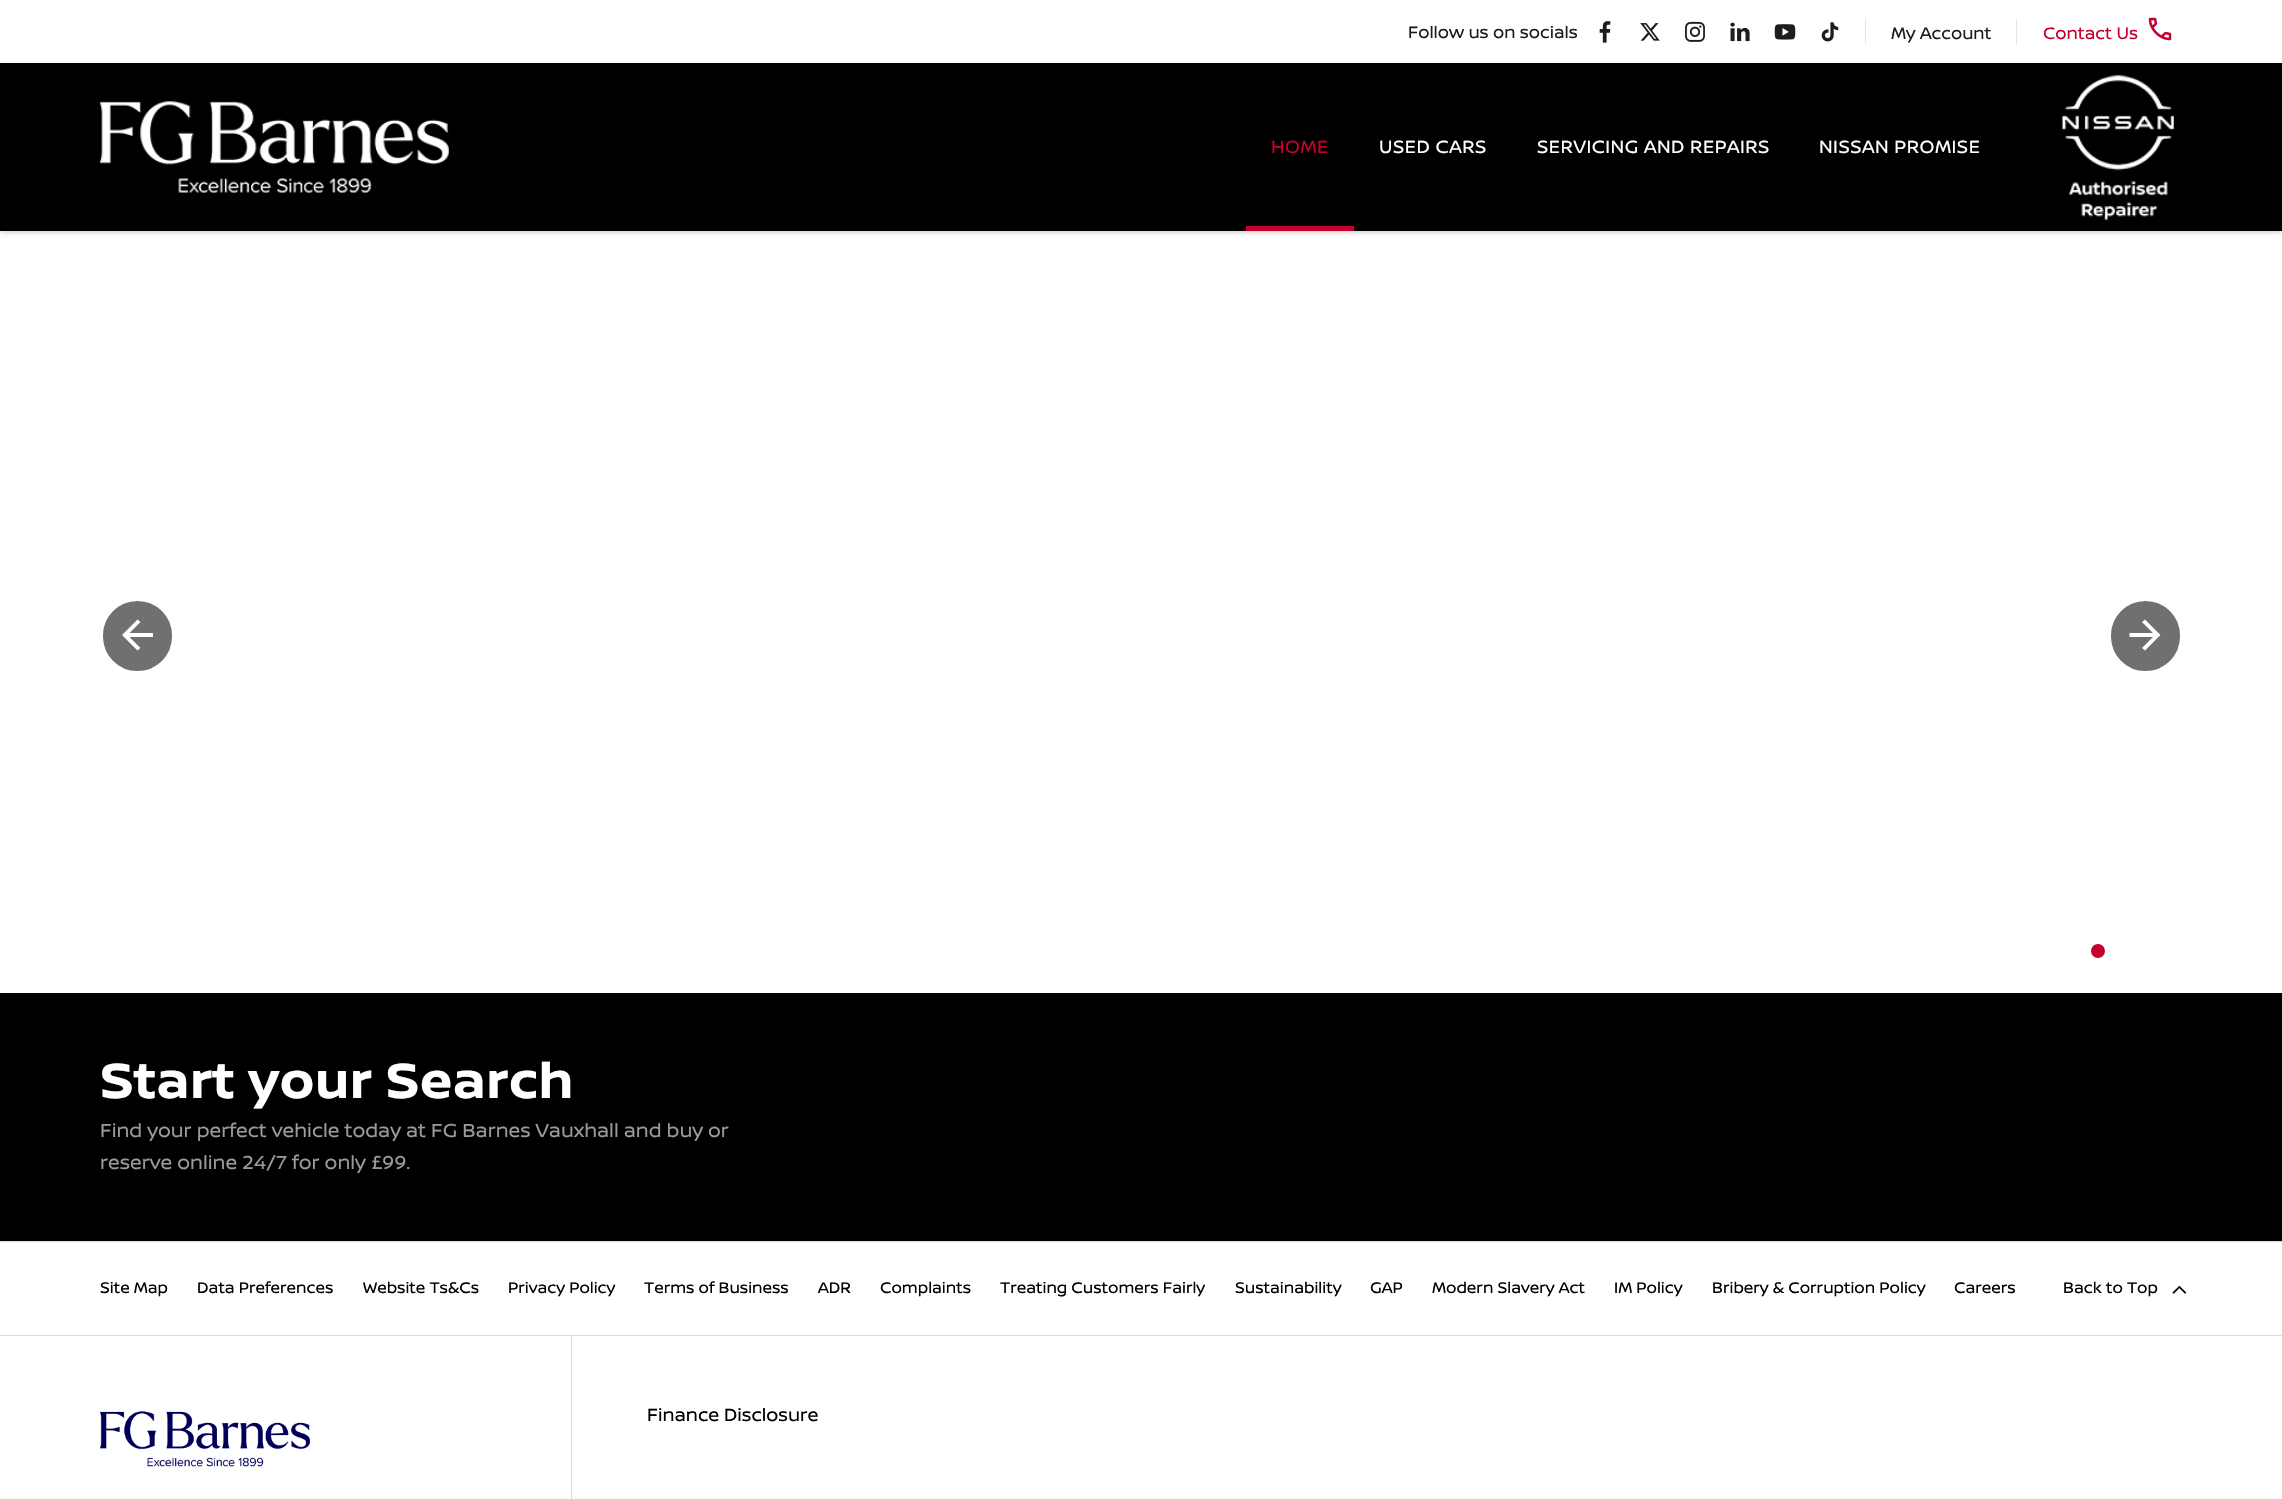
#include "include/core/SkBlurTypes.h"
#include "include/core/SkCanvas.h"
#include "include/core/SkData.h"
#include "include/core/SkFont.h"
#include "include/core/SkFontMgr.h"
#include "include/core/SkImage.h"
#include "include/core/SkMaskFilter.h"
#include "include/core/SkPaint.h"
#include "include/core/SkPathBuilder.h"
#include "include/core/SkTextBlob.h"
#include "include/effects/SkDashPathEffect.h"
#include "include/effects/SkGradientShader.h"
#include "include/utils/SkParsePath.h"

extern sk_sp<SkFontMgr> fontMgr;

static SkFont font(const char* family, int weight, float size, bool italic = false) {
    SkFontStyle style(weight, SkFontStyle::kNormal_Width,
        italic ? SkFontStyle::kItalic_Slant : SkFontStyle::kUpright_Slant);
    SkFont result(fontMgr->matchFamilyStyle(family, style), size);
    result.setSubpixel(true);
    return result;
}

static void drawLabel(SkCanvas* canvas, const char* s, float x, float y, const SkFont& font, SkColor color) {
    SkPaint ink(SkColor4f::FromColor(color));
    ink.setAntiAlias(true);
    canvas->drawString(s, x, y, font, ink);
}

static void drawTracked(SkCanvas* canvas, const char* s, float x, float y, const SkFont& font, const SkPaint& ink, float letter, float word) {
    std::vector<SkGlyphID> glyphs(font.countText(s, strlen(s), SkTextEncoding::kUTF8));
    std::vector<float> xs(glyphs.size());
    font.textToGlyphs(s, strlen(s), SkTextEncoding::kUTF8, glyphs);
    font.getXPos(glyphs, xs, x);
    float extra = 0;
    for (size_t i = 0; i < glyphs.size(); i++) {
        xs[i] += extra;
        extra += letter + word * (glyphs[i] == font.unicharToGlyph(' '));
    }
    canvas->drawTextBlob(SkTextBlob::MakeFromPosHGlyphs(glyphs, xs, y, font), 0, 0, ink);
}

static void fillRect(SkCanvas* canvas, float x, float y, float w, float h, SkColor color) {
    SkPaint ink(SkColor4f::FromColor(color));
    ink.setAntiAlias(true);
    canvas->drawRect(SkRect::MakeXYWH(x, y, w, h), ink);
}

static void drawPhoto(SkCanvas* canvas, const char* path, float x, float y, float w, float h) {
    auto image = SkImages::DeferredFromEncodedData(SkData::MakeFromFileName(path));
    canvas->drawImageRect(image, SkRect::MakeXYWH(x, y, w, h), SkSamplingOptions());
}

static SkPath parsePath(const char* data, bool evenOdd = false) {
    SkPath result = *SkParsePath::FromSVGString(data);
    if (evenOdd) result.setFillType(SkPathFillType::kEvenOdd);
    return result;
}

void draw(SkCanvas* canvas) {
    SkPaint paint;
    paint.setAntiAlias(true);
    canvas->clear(0xFFFFFFFF);
    paint.setColor(0x4D000000);
    paint.setMaskFilter(SkMaskFilter::MakeBlur(kNormal_SkBlurStyle, 3));
    canvas->drawRect(SkRect::MakeXYWH(0, 0, 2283, 231), paint);
    paint.setMaskFilter(nullptr);
    fillRect(canvas, 0, 0, 2282, 63, 0xFFFFFFFF);
    SkFont font1 = font("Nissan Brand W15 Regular", 400, 17.5f);
    drawLabel(canvas, "Follow us on socials", 1408, 38, font1, 0xFF1D1D1B);
    drawPhoto(canvas, "assets/img1.png", 1599, 21, 12, 22);
    drawPhoto(canvas, "assets/img2.png", 1640, 23, 20, 18);
    drawPhoto(canvas, "assets/img3.png", 1685, 21, 20, 21);
    drawPhoto(canvas, "assets/img4.png", 1730, 22, 20, 20);
    drawPhoto(canvas, "assets/img5.png", 1774, 24, 22, 16);
    drawPhoto(canvas, "assets/img6.png", 1821, 22, 18, 20);
    fillRect(canvas, 1865, 19, 1, 25, 0xFFE7E4E4);
    drawLabel(canvas, "My Account", 1891, 39, font1, 0xFF1D1D1B);
    fillRect(canvas, 2016, 19, 1, 25, 0xFFE7E4E4);
    drawLabel(canvas, "Contact Us", 2043, 39, font1, 0xFFC3002E);
    drawPhoto(canvas, "assets/img7.png", 2148, 17, 24, 24);
    fillRect(canvas, 0, 63, 2282, 168, 0xFF000000);
    drawPhoto(canvas, "assets/img8.png", 100, 101, 349, 92);
    SkFont font2 = font("Nissan Brand W15 Regular", 400, 18.75f);
    paint.setColor(0xFFC3002E);
    drawTracked(canvas, "HOME", 1271, 153, font2, paint, 0.5f, 0);
    fillRect(canvas, 1246, 226, 108, 5, 0xFFC3002E);
    paint.setColor(0xFFFFFFFF);
    drawTracked(canvas, "USED CARS", 1379, 153, font2, paint, 0.5f, 0);
    drawTracked(canvas, "SERVICING AND REPAIRS", 1537, 153, font2, paint, 0.5f, 0);
    drawTracked(canvas, "NISSAN PROMISE", 1819, 153, font2, paint, 0.5f, 0);
    drawPhoto(canvas, "assets/img9.png", 2062, 74, 112, 147);
    paint.setColor(0xFF707070);
    canvas->drawRoundRect(SkRect::MakeXYWH(101.5f, 599.5f, 72, 73), 36, 36, paint);
    paint.setStroke(true);
    paint.setStrokeWidth(3);
    paint.setColor(0xFFFFFFFF);
    canvas->drawRoundRect(SkRect::MakeXYWH(101.5f, 599.5f, 72, 73), 36, 36, paint);
    paint.setStroke(false);
    canvas->drawPath(parsePath("M137.5 619.5L140.5 622L129.5 633H153V637H129.5L140.5 648L137.5 650.5L122 635Z"), paint);
    paint.setColor(0xFF707070);
    canvas->drawRoundRect(SkRect::MakeXYWH(2109.5f, 599.5f, 72, 73), 36, 36, paint);
    paint.setStroke(true);
    paint.setColor(0xFFFFFFFF);
    canvas->drawRoundRect(SkRect::MakeXYWH(2109.5f, 599.5f, 72, 73), 36, 36, paint);
    paint.setStroke(false);
    canvas->drawPath(parsePath("M2145 650.5L2142 648L2153 637H2129.5V633H2153L2142 622L2145 619.5L2160.5 635Z"), paint);
    paint.setColor(0xFFC3002E);
    canvas->drawCircle(2098, 951, 7, paint);
    fillRect(canvas, 0, 993, 2282, 248, 0xFF000000);
    SkFont font3 = font("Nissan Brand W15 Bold", 700, 52.5f);
    paint.setColor(0xFFFFFFFF);
    drawTracked(canvas, "Start your Search", 100, 1098, font3, paint, 0.5f, 0);
    SkFont font4 = font("Nissan Brand W15 Regular", 400, 20);
    drawLabel(canvas, "Find your perfect vehicle today at FG Barnes Vauxhall and buy or", 100, 1137, font4, 0xFF9A9A9A);
    drawLabel(canvas, "reserve online 24/7 for only £99.", 100, 1169, font4, 0xFF9A9A9A);
    fillRect(canvas, 0, 1241, 2282, 1, 0xFFD9D9E6);
    SkFont font5 = font("Nissan Brand W15 Regular", 400, 16.25f);
    drawLabel(canvas, "Site Map", 100, 1293, font5, 0xFF000000);
    drawLabel(canvas, "Data Preferences", 197, 1293, font5, 0xFF000000);
    drawLabel(canvas, "Website Ts&Cs", 363, 1293, font5, 0xFF000000);
    drawLabel(canvas, "Privacy Policy", 508, 1293, font5, 0xFF000000);
    drawLabel(canvas, "Terms of Business", 644, 1293, font5, 0xFF000000);
    drawLabel(canvas, "ADR", 818, 1293, font5, 0xFF000000);
    drawLabel(canvas, "Complaints", 880, 1293, font5, 0xFF000000);
    drawLabel(canvas, "Treating Customers Fairly", 1000, 1293, font5, 0xFF000000);
    drawLabel(canvas, "Sustainability", 1235, 1293, font5, 0xFF000000);
    drawLabel(canvas, "GAP", 1370, 1293, font5, 0xFF000000);
    drawLabel(canvas, "Modern Slavery Act", 1432, 1293, font5, 0xFF000000);
    drawLabel(canvas, "IM Policy", 1614, 1293, font5, 0xFF000000);
    drawLabel(canvas, "Bribery & Corruption Policy", 1712, 1293, font5, 0xFF000000);
    drawLabel(canvas, "Careers", 1954, 1293, font5, 0xFF000000);
    drawLabel(canvas, "Back to Top", 2063, 1293, font5, 0xFF000000);
    drawPhoto(canvas, "assets/img10.png", 2172, 1285, 15, 9);
    fillRect(canvas, 0, 1335, 2282, 1, 0xFFD9D9E6);
    drawPhoto(canvas, "assets/img11.png", 100, 1411, 210, 56);
    fillRect(canvas, 571, 1336, 1, 163, 0xFFD9D9E6);
    drawLabel(canvas, "Finance Disclosure", 647, 1421, font2, 0xFF000000);
}
